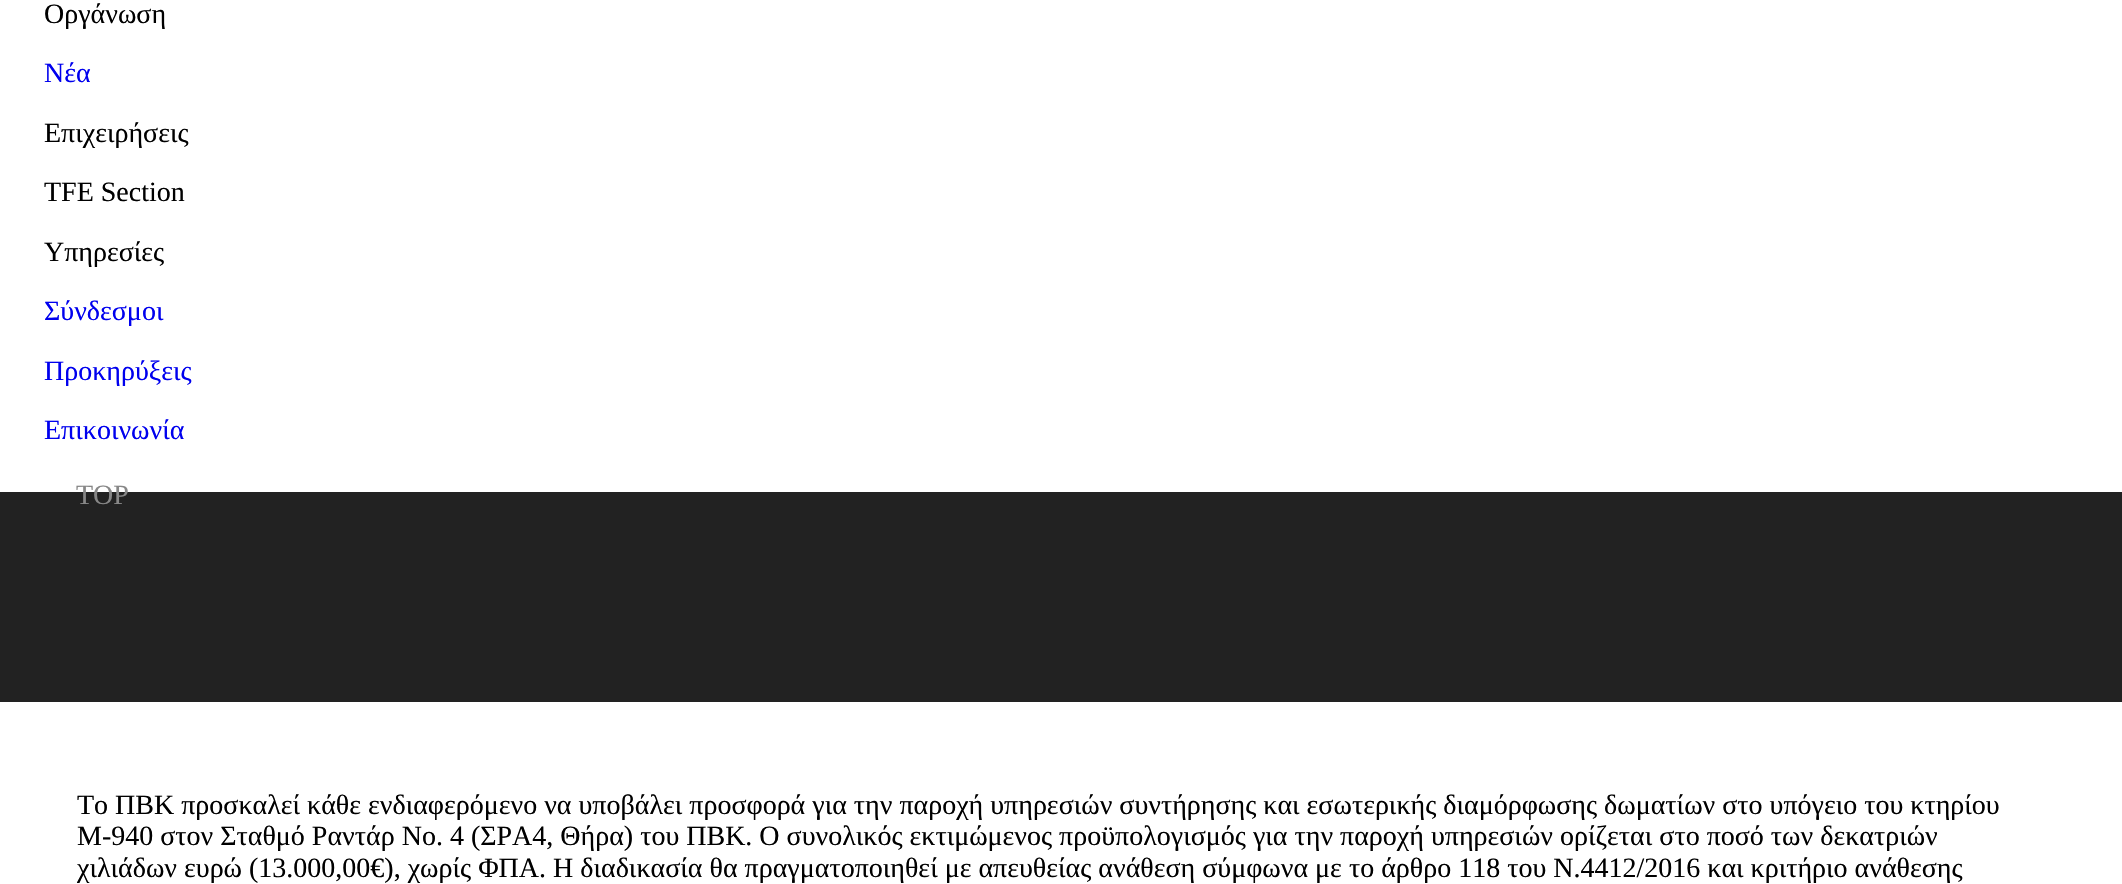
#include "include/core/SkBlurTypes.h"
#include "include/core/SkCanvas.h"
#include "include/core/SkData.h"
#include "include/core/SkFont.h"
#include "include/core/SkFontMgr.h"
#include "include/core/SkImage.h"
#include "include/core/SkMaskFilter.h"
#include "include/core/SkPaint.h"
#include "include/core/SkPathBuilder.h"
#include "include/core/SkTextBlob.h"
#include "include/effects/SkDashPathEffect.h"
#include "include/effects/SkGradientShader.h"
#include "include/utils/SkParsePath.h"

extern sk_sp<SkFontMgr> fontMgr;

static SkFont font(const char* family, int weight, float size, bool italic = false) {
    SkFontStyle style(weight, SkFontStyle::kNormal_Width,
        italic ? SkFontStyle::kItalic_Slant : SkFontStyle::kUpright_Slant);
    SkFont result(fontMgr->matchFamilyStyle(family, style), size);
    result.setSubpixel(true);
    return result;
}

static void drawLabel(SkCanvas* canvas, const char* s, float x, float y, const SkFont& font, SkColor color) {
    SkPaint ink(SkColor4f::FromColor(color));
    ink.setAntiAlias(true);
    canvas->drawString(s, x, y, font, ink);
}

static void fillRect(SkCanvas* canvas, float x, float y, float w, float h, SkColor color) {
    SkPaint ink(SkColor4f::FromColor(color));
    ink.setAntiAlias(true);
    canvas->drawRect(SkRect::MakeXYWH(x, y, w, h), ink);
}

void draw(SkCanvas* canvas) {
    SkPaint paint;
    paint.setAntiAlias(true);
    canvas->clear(0xFFFFFFFF);
    SkFont font1 = font("Liberation Serif", 400, 28);
    drawLabel(canvas, "Οργάνωση", 44, 23, font1, 0xFF000000);
    drawLabel(canvas, "Νέα", 44, 82, font1, 0xFF0000EE);
    drawLabel(canvas, "Επιχειρήσεις", 44, 142, font1, 0xFF000000);
    drawLabel(canvas, "TFE Section", 44, 201, font1, 0xFF000000);
    drawLabel(canvas, "Υπηρεσίες", 44, 261, font1, 0xFF000000);
    drawLabel(canvas, "Σύνδεσμοι", 44, 320, font1, 0xFF0000EE);
    drawLabel(canvas, "Προκηρύξεις", 44, 380, font1, 0xFF0000EE);
    drawLabel(canvas, "Επικοινωνία", 44, 439, font1, 0xFF0000EE);
    fillRect(canvas, 0, 492, 2122, 210, 0xFF222222);
    drawLabel(canvas, "TOP", 76, 504, font1, 0xFF878787);
    drawLabel(canvas, "Το ΠΒΚ προσκαλεί κάθε ενδιαφερόμενο να υποβάλει προσφορά για την παροχή υπηρεσιών συντήρησης και εσωτερικής διαμόρφωσης δωματίων στο υπόγειο του κτηρίου", 77, 814, font1, 0xFF000000);
    drawLabel(canvas, "Μ-940 στον Σταθμό Ραντάρ Νο. 4 (ΣΡΑ4, Θήρα) του ΠΒΚ. Ο συνολικός εκτιμώμενος προϋπολογισμός για την παροχή υπηρεσιών ορίζεται στο ποσό των δεκατριών", 77, 845, font1, 0xFF000000);
    drawLabel(canvas, "χιλιάδων ευρώ (13.000,00€), χωρίς ΦΠΑ. Η διαδικασία θα πραγματοποιηθεί με απευθείας ανάθεση σύμφωνα με το άρθρο 118 του Ν.4412/2016 και κριτήριο ανάθεσης", 77, 877, font1, 0xFF000000);
}
